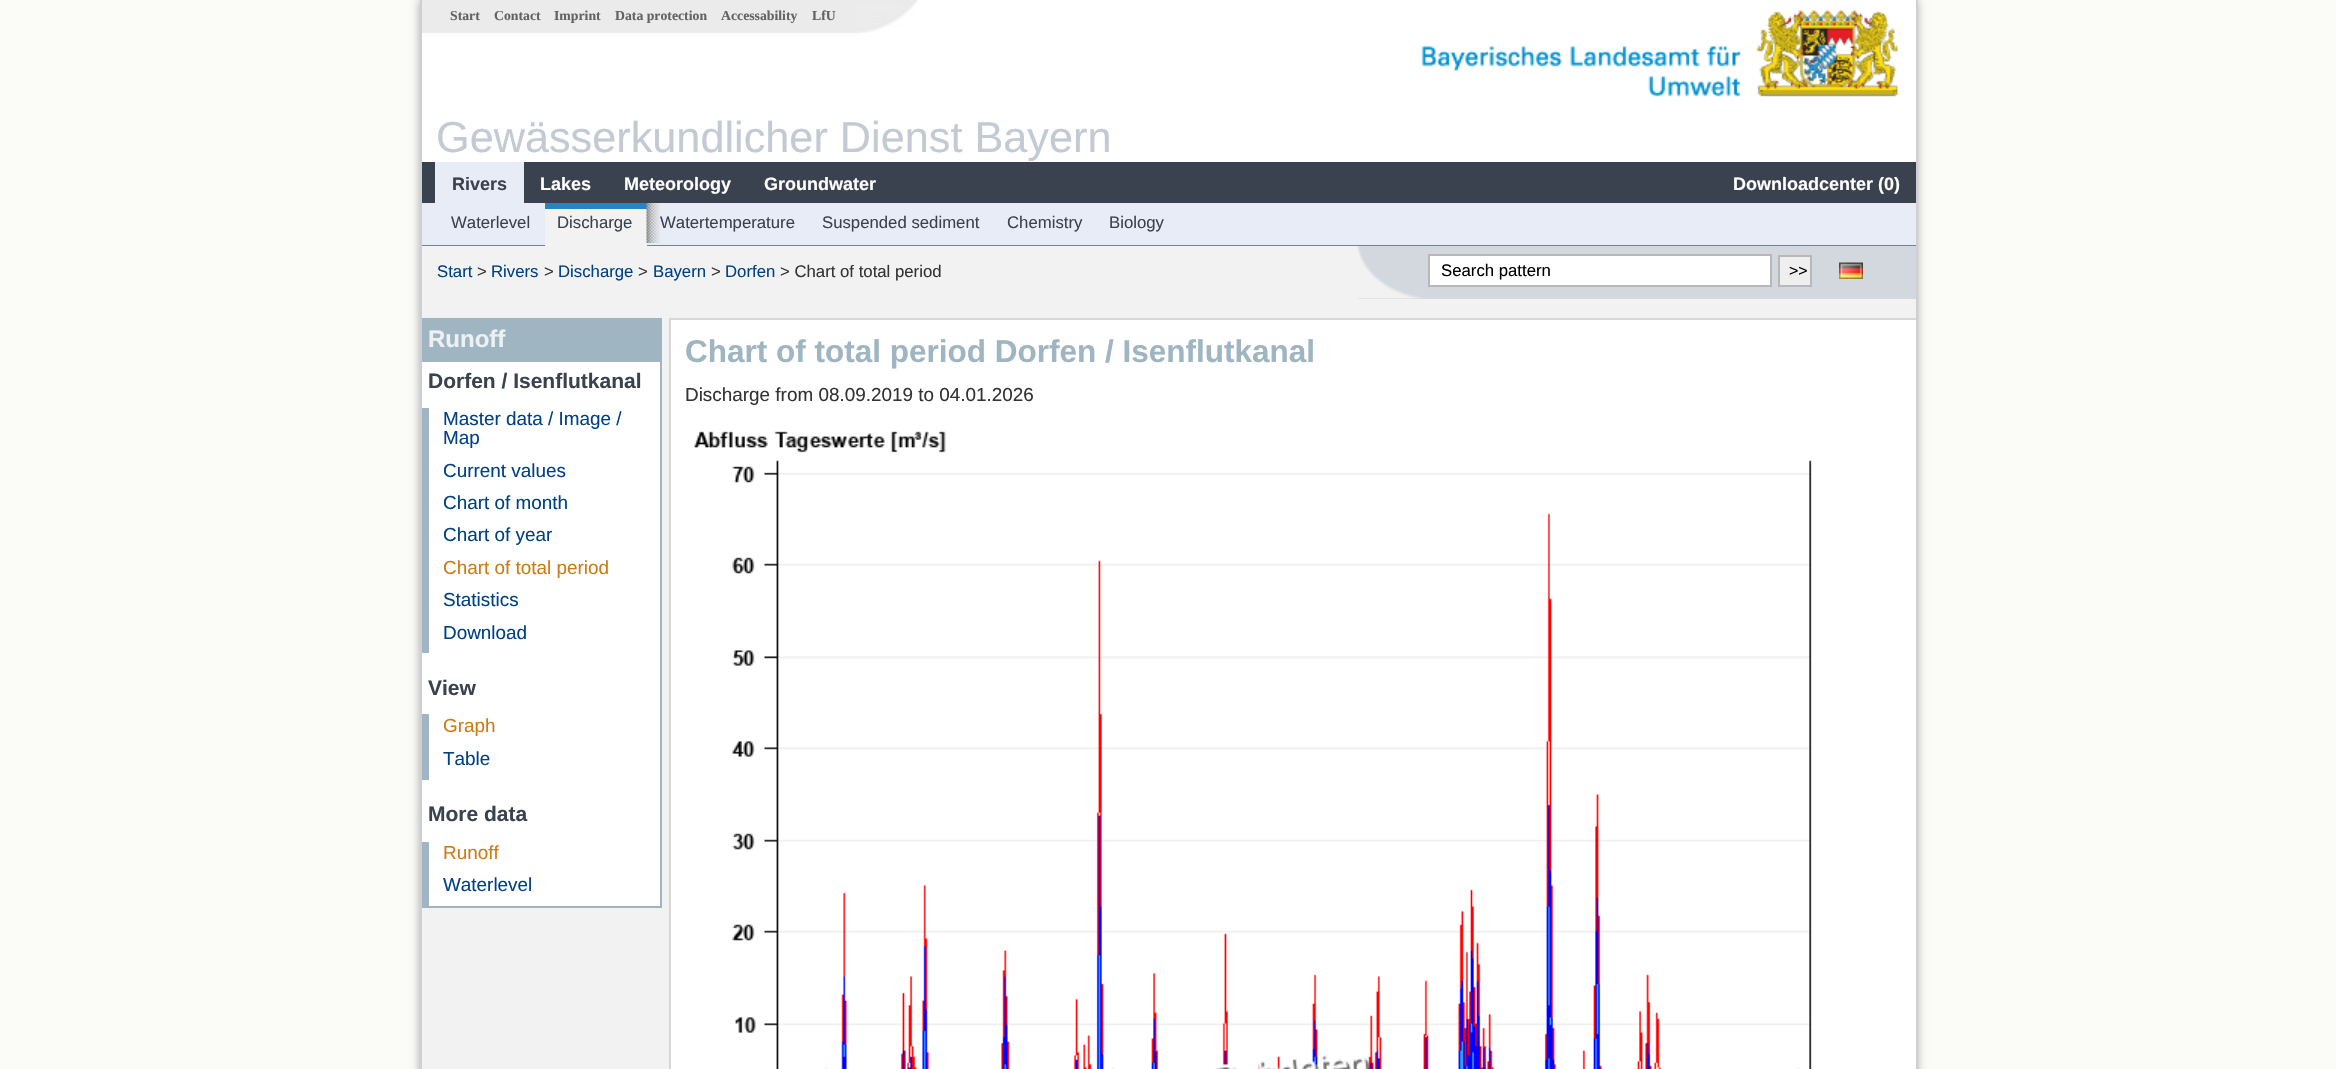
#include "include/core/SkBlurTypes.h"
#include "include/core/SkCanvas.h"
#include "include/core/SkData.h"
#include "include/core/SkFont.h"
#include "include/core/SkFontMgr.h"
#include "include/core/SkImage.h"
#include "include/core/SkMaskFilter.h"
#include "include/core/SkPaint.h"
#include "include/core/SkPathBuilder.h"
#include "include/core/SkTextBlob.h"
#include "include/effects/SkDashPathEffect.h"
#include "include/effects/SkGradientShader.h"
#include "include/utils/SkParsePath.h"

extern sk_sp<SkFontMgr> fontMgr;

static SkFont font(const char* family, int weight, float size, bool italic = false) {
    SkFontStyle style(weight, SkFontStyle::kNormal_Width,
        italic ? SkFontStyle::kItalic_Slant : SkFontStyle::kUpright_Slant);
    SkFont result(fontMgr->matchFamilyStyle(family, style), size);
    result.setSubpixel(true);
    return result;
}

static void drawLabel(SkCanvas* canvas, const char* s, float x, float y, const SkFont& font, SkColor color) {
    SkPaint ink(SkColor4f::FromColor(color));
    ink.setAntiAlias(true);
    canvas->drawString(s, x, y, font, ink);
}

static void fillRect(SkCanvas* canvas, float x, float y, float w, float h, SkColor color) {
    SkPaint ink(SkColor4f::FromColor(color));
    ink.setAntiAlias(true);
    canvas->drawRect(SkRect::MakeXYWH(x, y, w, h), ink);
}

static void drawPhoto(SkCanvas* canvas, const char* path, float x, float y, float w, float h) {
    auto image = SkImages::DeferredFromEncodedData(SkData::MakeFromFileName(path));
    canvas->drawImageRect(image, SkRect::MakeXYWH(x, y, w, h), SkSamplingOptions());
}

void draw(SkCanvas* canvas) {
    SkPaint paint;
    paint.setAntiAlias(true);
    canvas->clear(0xFFFBFBF8);
    paint.setColor(0x59000000);
    paint.setMaskFilter(SkMaskFilter::MakeBlur(kNormal_SkBlurStyle, 4.5f));
    canvas->drawRect(SkRect::MakeXYWH(420, 0, 1497, 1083), paint);
    paint.setMaskFilter(nullptr);
    fillRect(canvas, 422, 0, 1494, 162, 0xFFFFFFFF);
    fillRect(canvas, 1916, 0, 2, 1069, 0xFFCECFD4);
    fillRect(canvas, 420, 0, 2, 1069, 0xFFCECFD4);
    fillRect(canvas, 422, 0, 435, 33, 0xFFEBEBEB);
    drawPhoto(canvas, "assets/img1.png", 857, 0, 61, 33);
    SkFont font1 = font("Liberation Serif", 700, 13.75f);
    drawLabel(canvas, "Start", 450, 20, font1, 0xFF636363);
    drawLabel(canvas, "Contact", 494, 20, font1, 0xFF636363);
    drawLabel(canvas, "Imprint", 554, 20, font1, 0xFF636363);
    drawLabel(canvas, "Data protection", 615, 20, font1, 0xFF636363);
    drawLabel(canvas, "Accessability", 721, 20, font1, 0xFF636363);
    drawLabel(canvas, "LfU", 812, 20, font1, 0xFF636363);
    drawPhoto(canvas, "assets/img2.png", 1421, 10, 477, 87);
    SkFont font2 = font("Liberation Sans", 400, 43.25f);
    drawLabel(canvas, "Gewässerkundlicher Dienst Bayern", 436, 152, font2, 0xFFC3CAD4);
    fillRect(canvas, 422, 162, 1494, 41, 0xFF3B424F);
    fillRect(canvas, 435, 162, 89, 41, 0xFFE7ECF7);
    SkFont font3 = font("Liberation Sans", 700, 18);
    drawLabel(canvas, "Rivers", 452, 190, font3, 0xFF3B424F);
    drawLabel(canvas, "Lakes", 540, 190, font3, 0xFFFFFFFF);
    drawLabel(canvas, "Meteorology", 624, 190, font3, 0xFFFFFFFF);
    drawLabel(canvas, "Groundwater", 764, 190, font3, 0xFFFFFFFF);
    drawLabel(canvas, "Downloadcenter (0)", 1733, 190, font3, 0xFFFFFFFF);
    fillRect(canvas, 422, 203, 1494, 42, 0xFFE7ECF7);
    fillRect(canvas, 422, 245, 1494, 1, 0xFF7A8291);
    SkFont font4 = font("Liberation Sans", 400, 16.75f);
    drawLabel(canvas, "Waterlevel", 451, 228, font4, 0xFF3B424F);
    fillRect(canvas, 545, 209, 102, 37, 0xFFF2F2F2);
    fillRect(canvas, 545, 203, 102, 6, 0xFF2484C6);
    drawLabel(canvas, "Discharge", 557, 228, font4, 0xFF3B424F);
    drawPhoto(canvas, "assets/img3.png", 646, 203, 14, 40);
    drawLabel(canvas, "Watertemperature", 660, 228, font4, 0xFF3B424F);
    drawLabel(canvas, "Suspended sediment", 822, 228, font4, 0xFF3B424F);
    drawLabel(canvas, "Chemistry", 1007, 228, font4, 0xFF3B424F);
    drawLabel(canvas, "Biology", 1109, 228, font4, 0xFF3B424F);
    fillRect(canvas, 422, 246, 1494, 823, 0xFFF2F2F2);
    drawLabel(canvas, "Start", 437, 277, font4, 0xFF004185);
    drawLabel(canvas, ">", 477, 277, font4, 0xFF333333);
    drawLabel(canvas, "Rivers", 491, 277, font4, 0xFF004185);
    drawLabel(canvas, ">", 544, 277, font4, 0xFF333333);
    drawLabel(canvas, "Discharge", 558, 277, font4, 0xFF004185);
    drawLabel(canvas, ">", 638, 277, font4, 0xFF333333);
    drawLabel(canvas, "Bayern", 653, 277, font4, 0xFF004185);
    drawLabel(canvas, ">", 711, 277, font4, 0xFF333333);
    drawLabel(canvas, "Dorfen", 725, 277, font4, 0xFF004185);
    drawLabel(canvas, "> Chart of total period", 780, 277, font4, 0xFF333333);
    fillRect(canvas, 1358, 246, 558, 53, 0xFFD3D8DF);
    drawPhoto(canvas, "assets/img4.png", 1357, 246, 66, 53);
    paint.setColor(0xFFFFFFFF);
    canvas->drawRect(SkRect::MakeXYWH(1429, 255, 342, 31), paint);
    paint.setStroke(true);
    paint.setStrokeWidth(2);
    paint.setColor(0xFFB8B8B8);
    canvas->drawRect(SkRect::MakeXYWH(1429, 255, 342, 31), paint);
    drawLabel(canvas, "Search pattern", 1441, 276, font4, 0xFF000000);
    paint.setStroke(false);
    paint.setColor(0xFFEFEFEF);
    canvas->drawRect(SkRect::MakeXYWH(1779, 256, 32, 30), paint);
    paint.setStroke(true);
    paint.setColor(0xFFB8B8B8);
    canvas->drawRect(SkRect::MakeXYWH(1779, 256, 32, 30), paint);
    SkFont font5 = font("Liberation Sans", 400, 16);
    drawLabel(canvas, ">>", 1789, 276, font5, 0xFF000000);
    drawPhoto(canvas, "assets/img5.png", 1839, 262, 24, 17);
    fillRect(canvas, 422, 362, 238, 544, 0xFFFFFFFF);
    fillRect(canvas, 422, 318, 240, 2, 0xFF9FB5C1);
    fillRect(canvas, 660, 318, 2, 590, 0xFF9FB5C1);
    fillRect(canvas, 422, 906, 240, 2, 0xFF9FB5C1);
    fillRect(canvas, 422, 320, 238, 42, 0xFF9FB5C1);
    SkFont font6 = font("Liberation Sans", 700, 24);
    drawLabel(canvas, "Runoff", 428, 347, font6, 0xFFEDF1F3);
    SkFont font7 = font("Liberation Sans", 700, 21);
    drawLabel(canvas, "Dorfen / Isenflutkanal", 428, 388, font7, 0xFF3B424F);
    fillRect(canvas, 422, 408, 7, 245, 0xFF9FB5C1);
    SkFont font8 = font("Liberation Sans", 400, 18.9f);
    drawLabel(canvas, "Master data / Image /", 443, 425, font8, 0xFF004185);
    drawLabel(canvas, "Map", 443, 444, font8, 0xFF004185);
    drawLabel(canvas, "Current values", 443, 477, font8, 0xFF004185);
    drawLabel(canvas, "Chart of month", 443, 509, font8, 0xFF004185);
    drawLabel(canvas, "Chart of year", 443, 541, font8, 0xFF004185);
    drawLabel(canvas, "Chart of total period", 443, 574, font8, 0xFFCC7B17);
    drawLabel(canvas, "Statistics", 443, 606, font8, 0xFF004185);
    drawLabel(canvas, "Download", 443, 639, font8, 0xFF004185);
    drawLabel(canvas, "View", 428, 695, font7, 0xFF3B424F);
    fillRect(canvas, 422, 714, 7, 66, 0xFF9FB5C1);
    drawLabel(canvas, "Graph", 443, 732, font8, 0xFFCC7B17);
    drawLabel(canvas, "Table", 443, 765, font8, 0xFF004185);
    drawLabel(canvas, "More data", 428, 821, font7, 0xFF3B424F);
    fillRect(canvas, 422, 842, 7, 64, 0xFF9FB5C1);
    drawLabel(canvas, "Runoff", 443, 859, font8, 0xFFCC7B17);
    drawLabel(canvas, "Waterlevel", 443, 891, font8, 0xFF004185);
    fillRect(canvas, 671, 320, 1245, 749, 0xFFFFFFFF);
    fillRect(canvas, 669, 318, 1247, 2, 0xFFD7D7D7);
    fillRect(canvas, 669, 318, 2, 751, 0xFFD7D7D7);
    SkFont font9 = font("Liberation Sans", 700, 31.5f);
    drawLabel(canvas, "Chart of total period Dorfen / Isenflutkanal", 685, 362, font9, 0xFF9FB5C1);
    drawLabel(canvas, "Discharge from 08.09.2019 to 04.01.2026", 685, 401, font8, 0xFF333333);
    drawPhoto(canvas, "assets/img6.png", 694, 431, 1118, 638);
}
